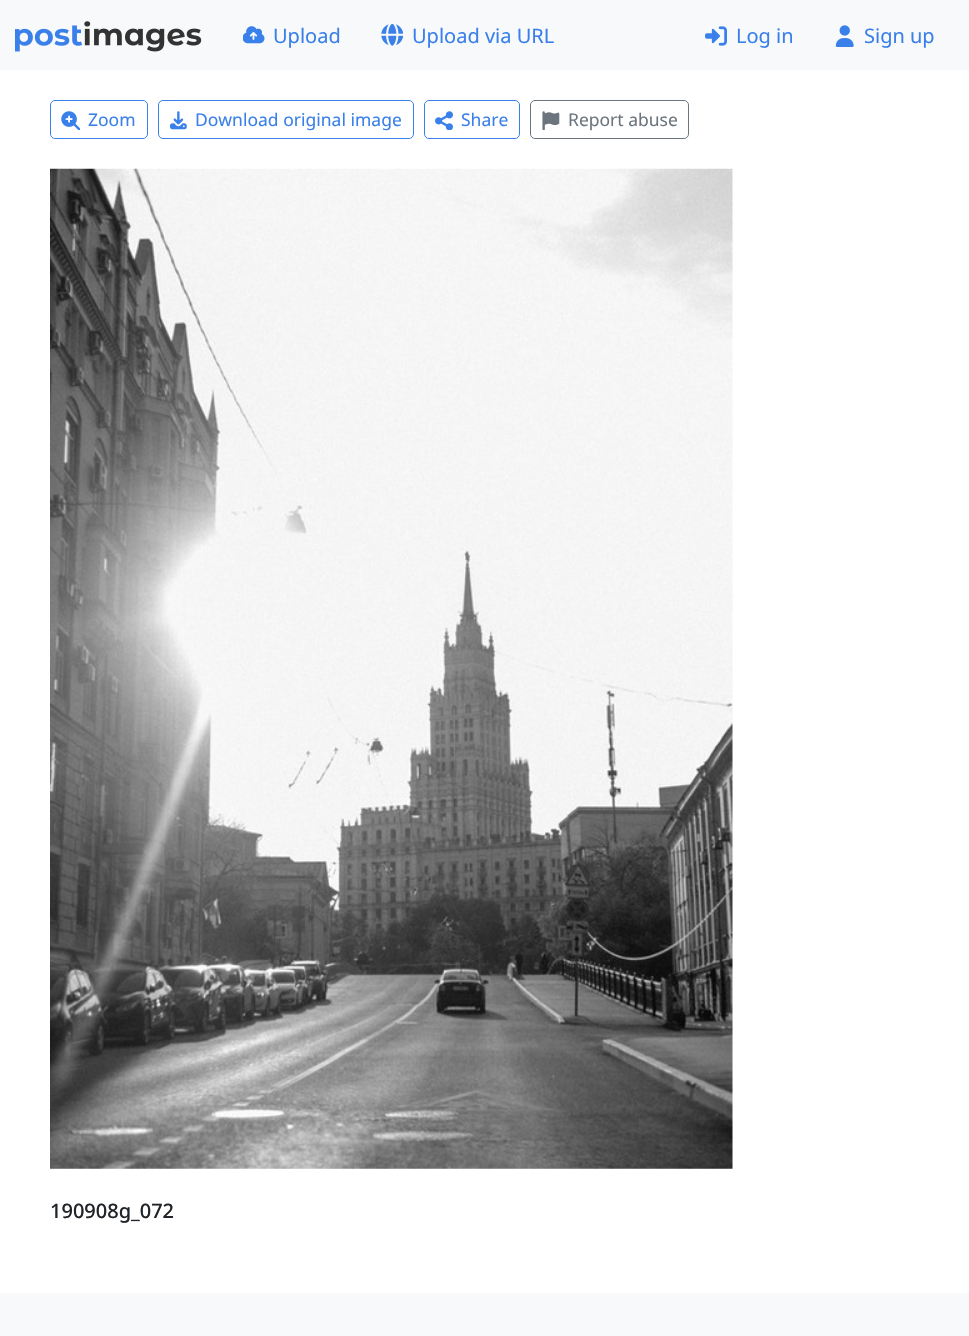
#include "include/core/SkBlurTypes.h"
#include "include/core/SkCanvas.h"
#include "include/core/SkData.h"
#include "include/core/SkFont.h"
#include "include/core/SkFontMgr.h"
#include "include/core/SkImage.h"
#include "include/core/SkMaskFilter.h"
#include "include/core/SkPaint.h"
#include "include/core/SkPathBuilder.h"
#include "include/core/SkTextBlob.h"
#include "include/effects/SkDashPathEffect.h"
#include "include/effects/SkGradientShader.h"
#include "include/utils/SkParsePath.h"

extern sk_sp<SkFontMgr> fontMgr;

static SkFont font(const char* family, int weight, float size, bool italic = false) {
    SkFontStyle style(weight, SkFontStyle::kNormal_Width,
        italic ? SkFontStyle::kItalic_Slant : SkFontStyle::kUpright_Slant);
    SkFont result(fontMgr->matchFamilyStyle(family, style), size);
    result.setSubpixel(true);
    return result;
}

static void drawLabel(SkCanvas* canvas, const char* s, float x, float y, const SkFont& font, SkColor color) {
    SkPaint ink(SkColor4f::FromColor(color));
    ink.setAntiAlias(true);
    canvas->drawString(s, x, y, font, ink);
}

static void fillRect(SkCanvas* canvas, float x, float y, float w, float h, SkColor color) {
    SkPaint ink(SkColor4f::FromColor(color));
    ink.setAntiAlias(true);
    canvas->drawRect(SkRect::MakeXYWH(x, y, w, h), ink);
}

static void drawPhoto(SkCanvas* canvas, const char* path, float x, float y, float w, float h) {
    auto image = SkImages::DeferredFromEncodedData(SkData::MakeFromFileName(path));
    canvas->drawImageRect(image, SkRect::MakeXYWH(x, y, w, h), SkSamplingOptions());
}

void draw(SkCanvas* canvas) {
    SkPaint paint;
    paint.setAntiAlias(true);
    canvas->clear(0xFFFFFFFF);
    fillRect(canvas, 0, 0, 969, 70, 0xFFF8F9FA);
    drawPhoto(canvas, "assets/img1.png", 15, 21, 187, 31);
    drawPhoto(canvas, "assets/img2.png", 243, 26, 22, 18);
    SkFont font1 = font("Noto Sans", 400, 20);
    drawLabel(canvas, "Upload", 273, 43, font1, 0xFF3A80EA);
    drawPhoto(canvas, "assets/img3.png", 381, 24, 22, 22);
    drawLabel(canvas, "Upload via URL", 412, 43, font1, 0xFF3A80EA);
    drawPhoto(canvas, "assets/img4.png", 705, 26, 22, 20);
    drawLabel(canvas, "Log in", 736, 43, font1, 0xFF3A80EA);
    drawPhoto(canvas, "assets/img5.png", 835, 25, 19, 22);
    drawLabel(canvas, "Sign up", 864, 43, font1, 0xFF3A80EA);
    paint.setStroke(true);
    paint.setStrokeWidth(1);
    paint.setColor(0xFF3A80EA);
    canvas->drawRoundRect(SkRect::MakeXYWH(50.5f, 100.5f, 97, 38), 4.5f, 4.5f, paint);
    drawPhoto(canvas, "assets/img6.png", 61, 111, 19, 19);
    SkFont font2 = font("Noto Sans", 400, 17.5f);
    drawLabel(canvas, "Zoom", 88, 126, font2, 0xFF3A80EA);
    canvas->drawRoundRect(SkRect::MakeXYWH(158.5f, 100.5f, 255, 38), 4.5f, 4.5f, paint);
    drawPhoto(canvas, "assets/img7.png", 169, 111, 18, 19);
    drawLabel(canvas, "Download original image", 195, 126, font2, 0xFF3A80EA);
    canvas->drawRoundRect(SkRect::MakeXYWH(424.5f, 100.5f, 95, 38), 4.5f, 4.5f, paint);
    drawPhoto(canvas, "assets/img8.png", 435, 111, 18, 19);
    drawLabel(canvas, "Share", 461, 126, font2, 0xFF3A80EA);
    paint.setColor(0xFF6C757D);
    canvas->drawRoundRect(SkRect::MakeXYWH(530.5f, 100.5f, 158, 38), 4.5f, 4.5f, paint);
    drawPhoto(canvas, "assets/img9.png", 542, 111, 18, 19);
    drawLabel(canvas, "Report abuse", 568, 126, font2, 0xFF6C757D);
    drawPhoto(canvas, "assets/img10.png", 50, 168, 683, 1001);
    SkFont font3 = font("Noto Sans", 500, 20);
    drawLabel(canvas, "190908g_072", 50, 1218, font3, 0xFF212529);
    fillRect(canvas, 0, 1293, 969, 43, 0xFFF8F9FA);
}
